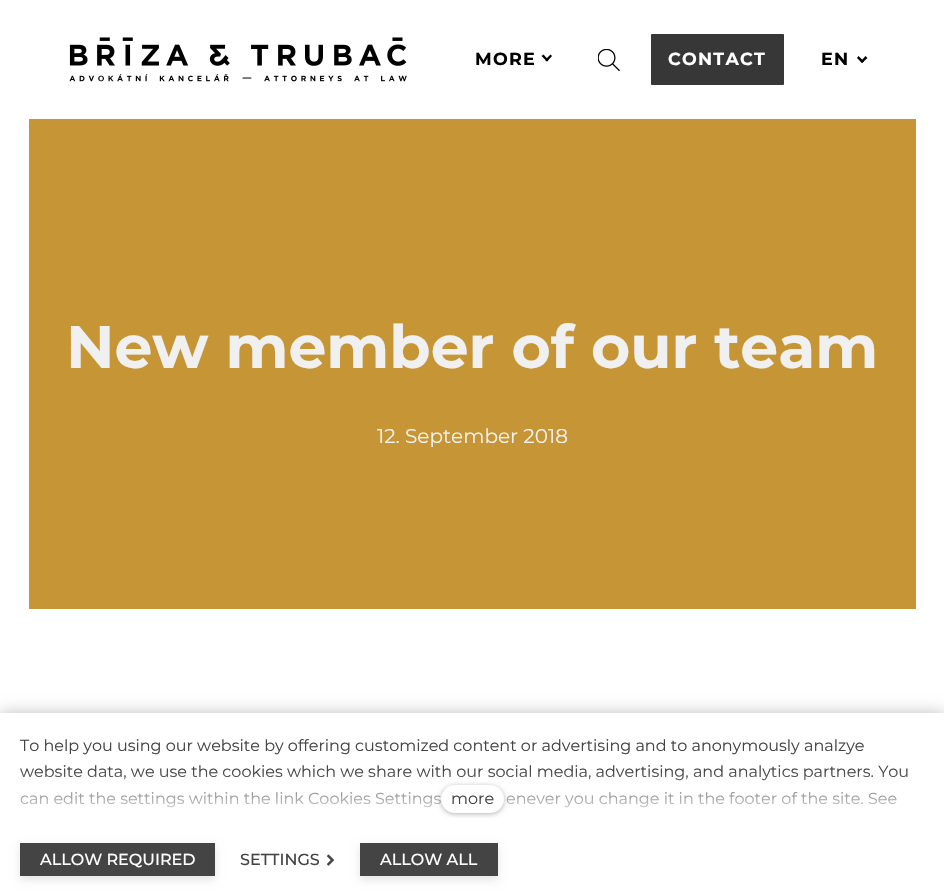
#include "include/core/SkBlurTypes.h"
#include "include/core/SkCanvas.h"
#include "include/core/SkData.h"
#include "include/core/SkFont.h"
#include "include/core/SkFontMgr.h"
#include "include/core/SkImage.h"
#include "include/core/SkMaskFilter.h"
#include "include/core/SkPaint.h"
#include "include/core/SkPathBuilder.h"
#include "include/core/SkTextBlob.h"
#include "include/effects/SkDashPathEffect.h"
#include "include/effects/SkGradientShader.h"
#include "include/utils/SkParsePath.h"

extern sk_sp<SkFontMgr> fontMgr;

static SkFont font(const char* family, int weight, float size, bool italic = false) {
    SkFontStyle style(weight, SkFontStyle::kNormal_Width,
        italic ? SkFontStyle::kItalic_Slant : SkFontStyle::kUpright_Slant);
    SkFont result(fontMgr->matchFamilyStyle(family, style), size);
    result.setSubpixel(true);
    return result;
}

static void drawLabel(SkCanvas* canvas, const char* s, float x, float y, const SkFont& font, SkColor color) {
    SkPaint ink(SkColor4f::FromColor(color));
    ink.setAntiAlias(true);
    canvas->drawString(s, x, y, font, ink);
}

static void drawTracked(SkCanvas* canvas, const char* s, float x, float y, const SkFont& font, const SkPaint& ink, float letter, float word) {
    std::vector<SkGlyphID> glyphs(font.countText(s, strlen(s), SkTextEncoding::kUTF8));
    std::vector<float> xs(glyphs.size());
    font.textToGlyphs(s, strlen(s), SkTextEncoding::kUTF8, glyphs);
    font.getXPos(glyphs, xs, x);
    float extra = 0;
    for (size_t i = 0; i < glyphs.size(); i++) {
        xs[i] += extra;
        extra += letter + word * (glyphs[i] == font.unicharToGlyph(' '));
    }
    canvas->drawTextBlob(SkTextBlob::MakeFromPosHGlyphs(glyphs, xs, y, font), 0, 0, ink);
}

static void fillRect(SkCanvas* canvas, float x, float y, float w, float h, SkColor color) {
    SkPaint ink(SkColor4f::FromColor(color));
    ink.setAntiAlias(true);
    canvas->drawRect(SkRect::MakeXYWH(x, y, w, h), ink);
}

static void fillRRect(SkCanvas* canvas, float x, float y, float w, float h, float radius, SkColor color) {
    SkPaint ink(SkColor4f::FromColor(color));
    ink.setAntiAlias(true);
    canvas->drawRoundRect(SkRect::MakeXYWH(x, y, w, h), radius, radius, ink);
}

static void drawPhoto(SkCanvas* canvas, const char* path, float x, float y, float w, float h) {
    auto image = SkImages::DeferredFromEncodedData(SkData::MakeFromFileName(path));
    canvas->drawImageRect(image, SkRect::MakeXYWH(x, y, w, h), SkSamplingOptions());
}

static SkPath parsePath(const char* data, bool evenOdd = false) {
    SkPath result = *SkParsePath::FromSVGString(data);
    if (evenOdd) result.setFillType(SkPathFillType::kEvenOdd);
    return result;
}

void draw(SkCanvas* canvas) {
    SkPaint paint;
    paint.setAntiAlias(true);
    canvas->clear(0xFFFFFFFF);
    drawPhoto(canvas, "assets/img1.png", 69, 37, 338, 45);
    SkFont font1 = font("Montserrat", 700, 17.5f);
    paint.setColor(0xFF000000);
    drawTracked(canvas, "MORE", 475, 65, font1, paint, 1.25f, 0);
    canvas->drawPath(parsePath("M550.5 54.5L552 56L547 61.5L545 60Z"), paint);
    canvas->drawPath(parsePath("M543.5 54.5L548.5 60L547 61.5L541.5 56Z"), paint);
    drawPhoto(canvas, "assets/img2.png", 598, 49, 22, 22);
    fillRRect(canvas, 651, 34, 133, 51, 1, 0xFF373737);
    paint.setColor(0xFFFFFFFF);
    drawTracked(canvas, "CONTACT", 668, 65, font1, paint, 1.25f, 0);
    paint.setColor(0xFF000000);
    drawTracked(canvas, "EN", 821, 65, font1, paint, 1.25f, 0);
    canvas->drawPath(parsePath("M865.5 56L867.5 58L862 63L860.5 61.5Z"), paint);
    canvas->drawPath(parsePath("M858.5 56L864 61.5L862 63L857 58Z"), paint);
    fillRect(canvas, 29, 119, 887, 490, 0xFFC69636);
    SkFont font2 = font("Montserrat", 700, 60);
    drawLabel(canvas, "New member of our team", 66, 368, font2, 0xFFF0F0F0);
    SkFont font3 = font("Montserrat", 400, 20);
    drawLabel(canvas, "12. September 2018", 377, 443, font3, 0xFFF0F0F0);
    paint.setColor(0x40000000);
    paint.setMaskFilter(SkMaskFilter::MakeBlur(kNormal_SkBlurStyle, 7.5f));
    canvas->drawRect(SkRect::MakeXYWH(0, 713, 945, 183), paint);
    paint.setMaskFilter(nullptr);
    fillRect(canvas, 0, 713, 944, 183, 0xFFFFFFFF);
    SkFont font4 = font("Montserrat", 400, 16);
    drawLabel(canvas, "To help you using our website by offering customized content or advertising and to anonymously analzye", 20, 751, font4, 0xFF444444);
    drawLabel(canvas, "website data, we use the cookies which we share with our social media, advertising, and analytics partners. You", 20, 777, font4, 0xFF444444);
    drawLabel(canvas, "can edit the settings within the link Cookies Settings", 20, 804, font4, 0xFF444444);
    drawLabel(canvas, "enever you change it in the footer of the site. See", 506, 804, font4, 0xFF444444);
    {
        const SkColor colors[] = {0xFFFFFFFF, 0x00FFFFFF};
        const float stops[] = {0, 1};
        const SkPoint ends[] = {{473, 823}, {473, 771}};
        paint.setShader(SkGradientShader::MakeLinear(ends, colors, stops, 2, SkTileMode::kClamp));
        paint.setAlpha(255);
    }
    canvas->drawRect(SkRect::MakeXYWH(20, 772, 888, 36), paint);
    paint.setShader(nullptr);
    paint.setColor(0x4D000000);
    paint.setMaskFilter(SkMaskFilter::MakeBlur(kNormal_SkBlurStyle, 2.5f));
    canvas->drawRoundRect(SkRect::MakeXYWH(441, 786, 63, 28), 14, 14, paint);
    paint.setMaskFilter(nullptr);
    fillRRect(canvas, 441, 785, 63, 28, 14, 0xFFFFFFFF);
    drawLabel(canvas, "more", 451, 804, font4, 0xFF444444);
    paint.setColor(0x1A000000);
    paint.setMaskFilter(SkMaskFilter::MakeBlur(kNormal_SkBlurStyle, 4));
    canvas->drawRect(SkRect::MakeXYWH(20, 846, 195, 34), paint);
    paint.setMaskFilter(nullptr);
    fillRect(canvas, 20, 843, 195, 33, 0xFF444444);
    SkFont font5 = font("Montserrat", 500, 16);
    drawLabel(canvas, "ALLOW REQUIRED", 40, 865, font5, 0xFFFFFFFF);
    drawLabel(canvas, "SETTINGS", 240, 865, font5, 0xFF444444);
    drawPhoto(canvas, "assets/img3.png", 326, 854, 8, 12);
    paint.setMaskFilter(SkMaskFilter::MakeBlur(kNormal_SkBlurStyle, 4));
    canvas->drawRect(SkRect::MakeXYWH(360, 846, 138, 34), paint);
    paint.setMaskFilter(nullptr);
    fillRect(canvas, 360, 843, 138, 33, 0xFF444444);
    drawLabel(canvas, "ALLOW ALL", 380, 865, font5, 0xFFFFFFFF);
}
